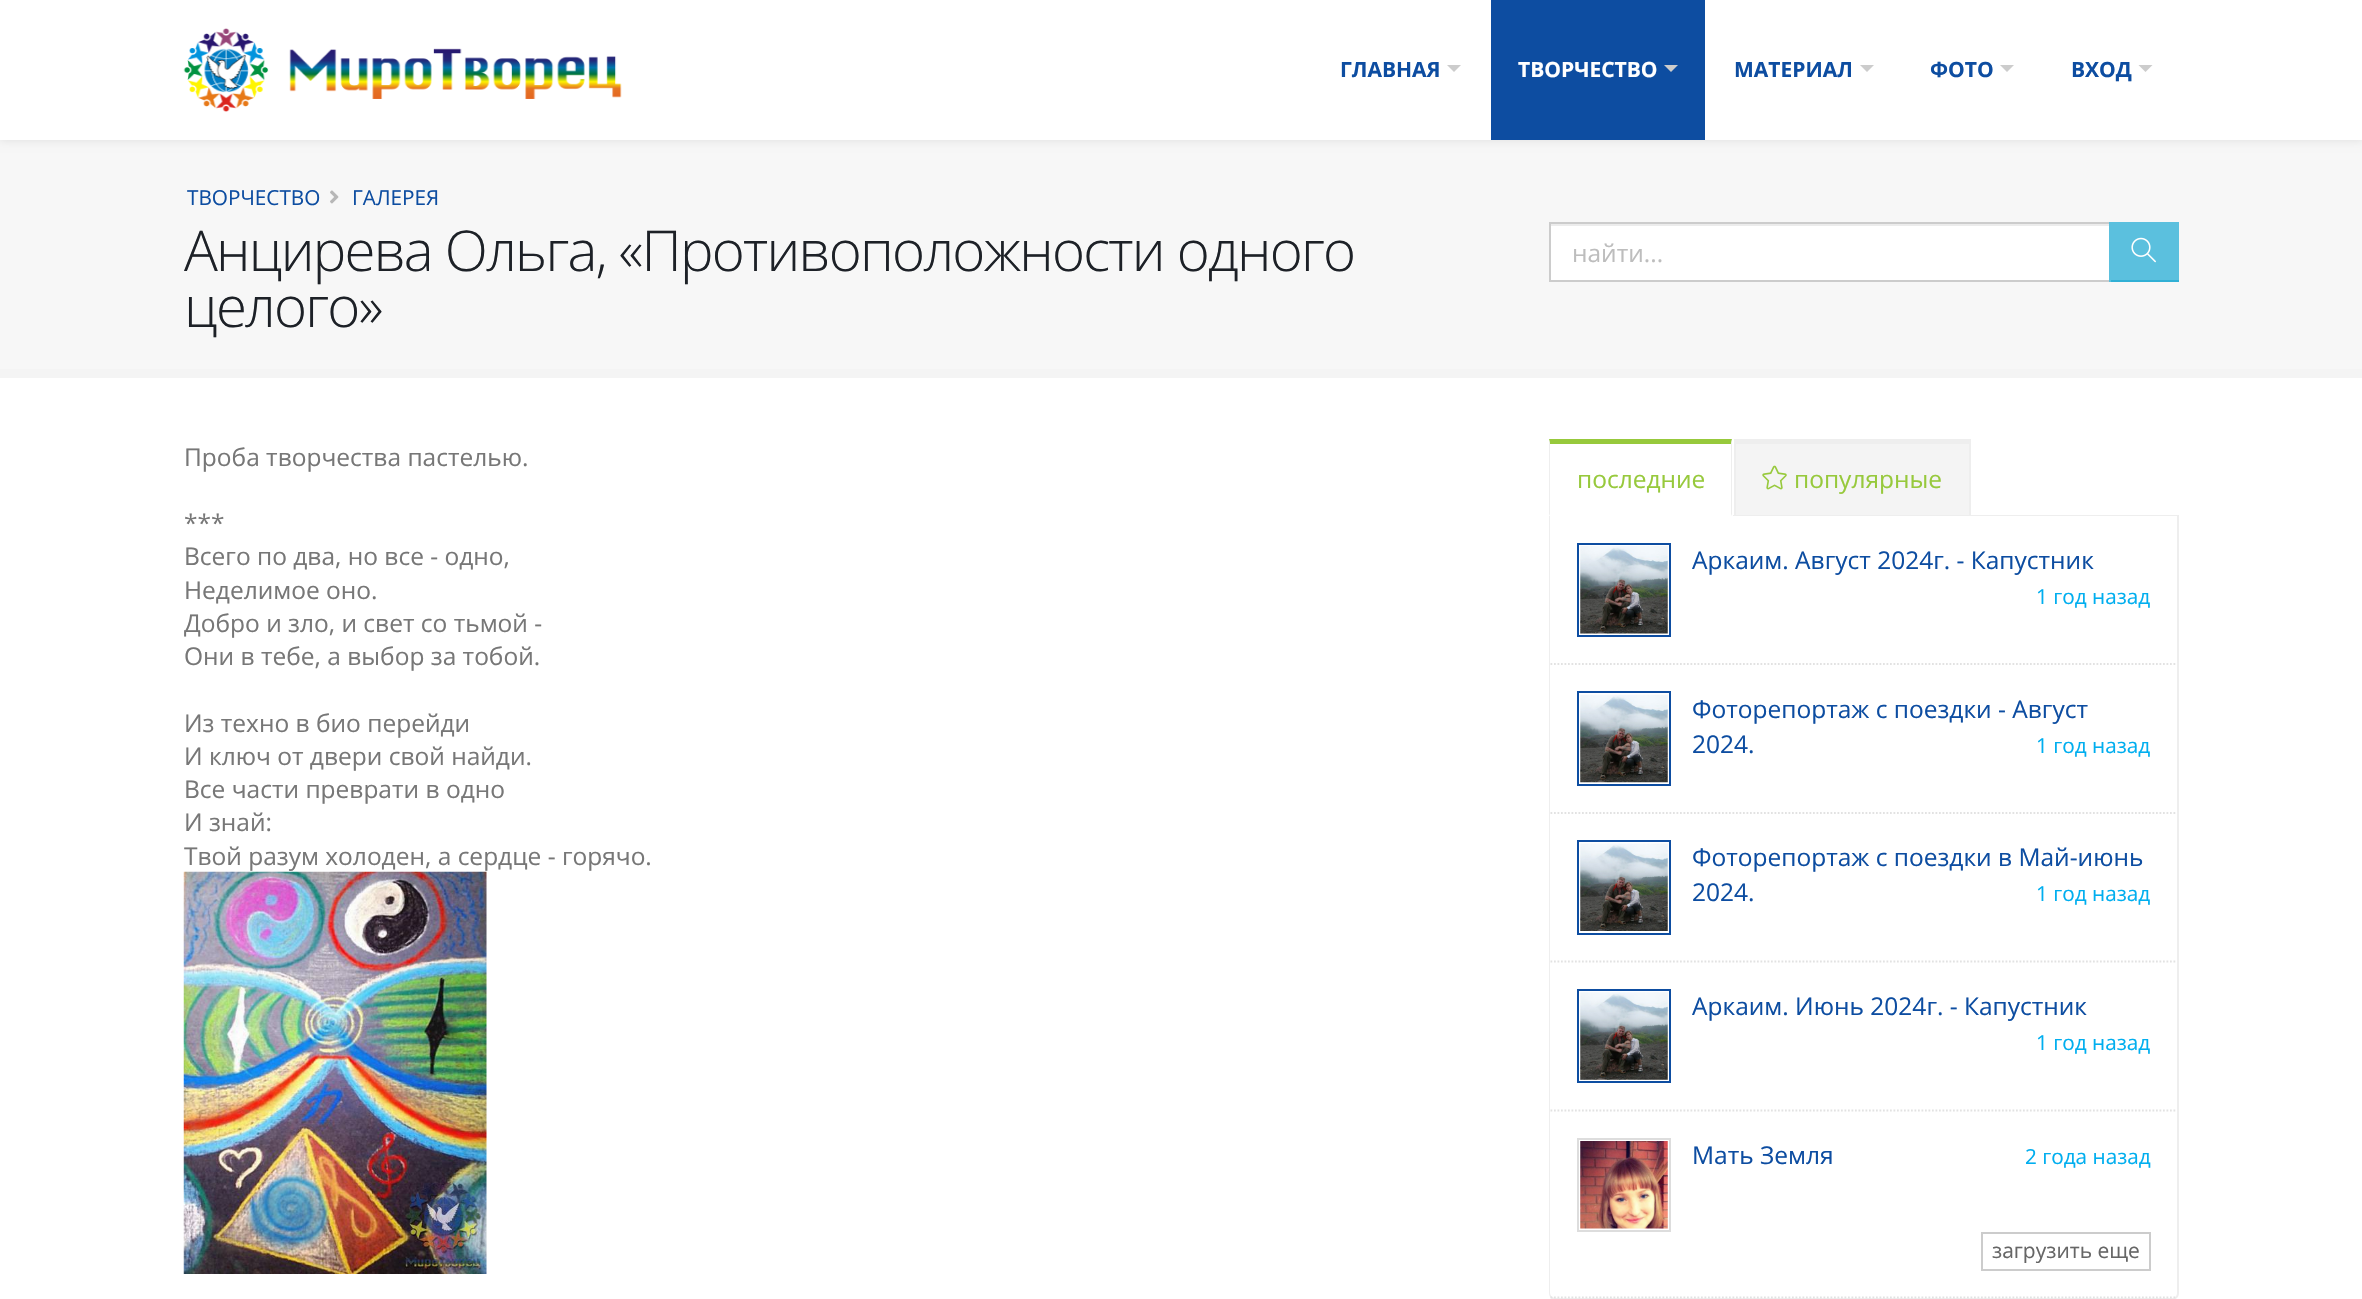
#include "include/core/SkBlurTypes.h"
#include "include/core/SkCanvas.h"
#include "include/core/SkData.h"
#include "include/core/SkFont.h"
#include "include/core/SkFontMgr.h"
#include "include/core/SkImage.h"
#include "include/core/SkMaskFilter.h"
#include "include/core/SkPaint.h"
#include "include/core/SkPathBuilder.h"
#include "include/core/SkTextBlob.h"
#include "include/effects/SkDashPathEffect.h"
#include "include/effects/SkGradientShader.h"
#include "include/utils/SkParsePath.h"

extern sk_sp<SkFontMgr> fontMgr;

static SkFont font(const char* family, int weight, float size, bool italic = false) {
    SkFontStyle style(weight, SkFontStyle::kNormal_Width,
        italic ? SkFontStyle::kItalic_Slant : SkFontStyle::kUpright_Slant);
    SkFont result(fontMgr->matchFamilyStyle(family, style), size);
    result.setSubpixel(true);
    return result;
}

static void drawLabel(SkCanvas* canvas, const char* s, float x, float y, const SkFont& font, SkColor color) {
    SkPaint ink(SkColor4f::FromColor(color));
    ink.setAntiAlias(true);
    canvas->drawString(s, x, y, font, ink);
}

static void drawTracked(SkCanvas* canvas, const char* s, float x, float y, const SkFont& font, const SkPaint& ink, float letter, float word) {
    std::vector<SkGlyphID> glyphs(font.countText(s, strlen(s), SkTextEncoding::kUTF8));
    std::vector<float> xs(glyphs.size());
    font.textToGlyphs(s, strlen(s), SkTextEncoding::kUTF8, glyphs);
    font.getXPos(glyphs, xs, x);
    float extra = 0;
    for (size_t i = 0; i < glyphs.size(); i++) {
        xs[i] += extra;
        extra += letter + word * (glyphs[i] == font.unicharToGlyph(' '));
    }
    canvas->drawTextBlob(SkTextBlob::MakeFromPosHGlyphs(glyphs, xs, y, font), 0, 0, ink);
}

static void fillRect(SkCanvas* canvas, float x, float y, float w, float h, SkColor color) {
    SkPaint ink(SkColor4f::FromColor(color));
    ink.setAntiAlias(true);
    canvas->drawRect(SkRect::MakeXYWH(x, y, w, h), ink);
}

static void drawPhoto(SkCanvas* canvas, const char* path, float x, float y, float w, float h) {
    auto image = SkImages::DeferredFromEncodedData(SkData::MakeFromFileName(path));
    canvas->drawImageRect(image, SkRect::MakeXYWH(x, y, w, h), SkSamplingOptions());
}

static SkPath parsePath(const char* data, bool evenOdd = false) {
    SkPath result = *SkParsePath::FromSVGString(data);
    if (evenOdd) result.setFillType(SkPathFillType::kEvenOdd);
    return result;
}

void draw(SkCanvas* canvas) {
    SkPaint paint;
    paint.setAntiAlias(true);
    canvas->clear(0xFFFFFFFF);
    fillRect(canvas, 0, 140, 2362, 229, 0xFFF7F7F7);
    paint.setColor(0x1A000000);
    paint.setMaskFilter(SkMaskFilter::MakeBlur(kNormal_SkBlurStyle, 4.5f));
    canvas->drawRect(SkRect::MakeXYWH(0, 0, 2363, 140), paint);
    paint.setMaskFilter(nullptr);
    fillRect(canvas, 0, 0, 2362, 140, 0xFFFFFFFF);
    drawPhoto(canvas, "assets/img1.png", 183, 28, 439, 84);
    SkFont font1 = font("Open Sans", 700, 21);
    drawLabel(canvas, "ГЛАВНАЯ", 1340, 77, font1, 0xFF0D4DA1);
    paint.setColor(0xFFCCCCCC);
    canvas->drawPath(parsePath("M1447 65H1461L1454 72Z"), paint);
    fillRect(canvas, 1491, 0, 214, 140, 0xFF0D4DA1);
    drawLabel(canvas, "ТВОРЧЕСТВО", 1518, 77, font1, 0xFFFFFFFF);
    canvas->drawPath(parsePath("M1664 65H1678L1671 72Z"), paint);
    drawLabel(canvas, "МАТЕРИАЛ", 1734, 77, font1, 0xFF0D4DA1);
    canvas->drawPath(parsePath("M1860 65H1874L1867 72Z"), paint);
    drawLabel(canvas, "ФОТО", 1930, 77, font1, 0xFF0D4DA1);
    canvas->drawPath(parsePath("M2000 65H2014L2007 72Z"), paint);
    drawLabel(canvas, "ВХОД", 2071, 77, font1, 0xFF0D4DA1);
    canvas->drawPath(parsePath("M2138.5 65H2152.5L2145.5 72Z"), paint);
    fillRect(canvas, 0, 369, 2362, 9, 0xFFF4F4F4);
    SkFont font2 = font("Open Sans", 400, 20.75f);
    drawLabel(canvas, "ТВОРЧЕСТВО", 187, 205, font2, 0xFF0D4DA1);
    drawPhoto(canvas, "assets/img2.png", 330, 190, 9, 14);
    drawLabel(canvas, "ГАЛЕРЕЯ", 352, 205, font2, 0xFF0D4DA1);
    SkFont font3 = font("Open Sans", 300, 56.35f);
    paint.setColor(0xFF1D2127);
    drawTracked(canvas, "Анцирева Ольга, «Противоположности одного", 184, 271, font3, paint, -1.75f, 0);
    drawTracked(canvas, "целого»", 184, 327, font3, paint, -1.75f, 0);
    fillRect(canvas, 1551, 226, 558, 54, 0xFFFFFFFF);
    fillRect(canvas, 1551, 224, 558, 2, 0xFFECECEC);
    paint.setStroke(true);
    paint.setStrokeWidth(2);
    paint.setColor(0xFFCCCCCC);
    canvas->drawRect(SkRect::MakeXYWH(1550, 223, 560, 58), paint);
    SkFont font4 = font("Open Sans", 400, 24.5f);
    drawLabel(canvas, "найти...", 1572, 262, font4, 0xFFBDBDBD);
    fillRect(canvas, 2111, 222, 68, 58, 0xFF5BC0DE);
    fillRect(canvas, 2109, 280, 70, 2, 0xFF31B0D5);
    fillRect(canvas, 2109, 222, 2, 60, 0xFF5BC0DE);
    drawPhoto(canvas, "assets/img3.png", 2131, 237, 25, 26);
    drawLabel(canvas, "Проба творчества пастелью.", 184, 466, font4, 0xFF777777);
    drawLabel(canvas, "***", 184, 532, font4, 0xFF777777);
    drawLabel(canvas, "Всего по два, но все - одно,", 184, 565, font4, 0xFF777777);
    drawLabel(canvas, "Неделимое оно.", 184, 599, font4, 0xFF777777);
    drawLabel(canvas, "Добро и зло, и свет со тьмой -", 184, 632, font4, 0xFF777777);
    drawLabel(canvas, "Они в тебе, а выбор за тобой.", 184, 665, font4, 0xFF777777);
    drawLabel(canvas, "Из техно в био перейди", 184, 732, font4, 0xFF777777);
    drawLabel(canvas, "И ключ от двери свой найди.", 184, 765, font4, 0xFF777777);
    drawLabel(canvas, "Все части преврати в одно", 184, 798, font4, 0xFF777777);
    drawLabel(canvas, "И знай:", 184, 831, font4, 0xFF777777);
    drawLabel(canvas, "Твой разум холоден, а сердце - горячо.", 184, 865, font4, 0xFF777777);
    drawPhoto(canvas, "assets/img4.png", 183, 871, 304, 403);
    fillRect(canvas, 1733, 515, 446, 1, 0xFFEEEEEE);
    paint.setStroke(false);
    paint.setColor(0xFF97C93C);
    canvas->drawPath(parsePath("M1549 439H1732L1731 444H1550Z"), paint);
    paint.setColor(0xFFEEEEEE);
    canvas->drawPath(parsePath("M1732 439V516L1731 514V444Z"), paint);
    canvas->drawPath(parsePath("M1549 516V439L1550 444V514Z"), paint);
    drawLabel(canvas, "последние", 1577, 488, font4, 0xFF97C93C);
    fillRect(canvas, 1736, 444, 233, 71, 0xFFF4F4F4);
    fillRect(canvas, 1734, 439, 237, 5, 0xFFEEEEEE);
    fillRect(canvas, 1969, 439, 2, 76, 0xFFEEEEEE);
    fillRect(canvas, 1734, 439, 2, 76, 0xFFEEEEEE);
    drawPhoto(canvas, "assets/img5.png", 1762, 465, 25, 25);
    drawLabel(canvas, "популярные", 1794, 488, font4, 0xFF97C93C);
    canvas->drawPath(parsePath("M1549 516H2179V1293C2179 1297 2176 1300 2172 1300H1556C1552 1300 1549 1297 1549 1293ZM1550 516H2177V1293C2177 1296 2175 1298 2172 1298H1556C1553 1298 1550 1296 1550 1293Z", true), paint);
    paint.setStroke(true);
    paint.setStrokeWidth(1.8f);
    paint.setColor(0xFFE2E2E2);
    paint.setPathEffect(SkDashPathEffect::Make({{1.75f, 1.75f}}, 0));
    canvas->drawPath(parsePath("M1550.5 664H2177"), paint);
    paint.setPathEffect(nullptr);
    paint.setStrokeWidth(2);
    paint.setColor(0xFF0D4DA1);
    canvas->drawRect(SkRect::MakeXYWH(1578, 544, 92, 92), paint);
    drawPhoto(canvas, "assets/img6.png", 1580, 546, 88, 88);
    drawLabel(canvas, "Аркаим. Август 2024г. - Капустник", 1692, 569, font4, 0xFF0D4DA1);
    drawLabel(canvas, "1 год назад", 2036, 604, font2, 0xFF00AEEF);
    paint.setStrokeWidth(1.8f);
    paint.setColor(0xFFE2E2E2);
    paint.setPathEffect(SkDashPathEffect::Make({{1.75f, 1.75f}}, 0));
    canvas->drawPath(parsePath("M1550.5 813H2177"), paint);
    paint.setPathEffect(nullptr);
    paint.setStrokeWidth(2);
    paint.setColor(0xFF0D4DA1);
    canvas->drawRect(SkRect::MakeXYWH(1578, 692, 92, 93), paint);
    drawPhoto(canvas, "assets/img7.png", 1580, 694, 88, 89);
    drawLabel(canvas, "Фоторепортаж с поездки - Август", 1692, 718, font4, 0xFF0D4DA1);
    drawLabel(canvas, "2024.", 1692, 753, font4, 0xFF0D4DA1);
    drawLabel(canvas, "1 год назад", 2036, 753, font2, 0xFF00AEEF);
    paint.setStrokeWidth(1.8f);
    paint.setColor(0xFFE2E2E2);
    paint.setPathEffect(SkDashPathEffect::Make({{1.75f, 1.75f}}, 0));
    canvas->drawPath(parsePath("M1550.5 961.5H2177"), paint);
    paint.setPathEffect(nullptr);
    paint.setStrokeWidth(2);
    paint.setColor(0xFF0D4DA1);
    canvas->drawRect(SkRect::MakeXYWH(1578, 841, 92, 93), paint);
    drawPhoto(canvas, "assets/img8.png", 1580, 843, 88, 88);
    drawLabel(canvas, "Фоторепортаж с поездки в Май-июнь", 1692, 866, font4, 0xFF0D4DA1);
    drawLabel(canvas, "2024.", 1692, 901, font4, 0xFF0D4DA1);
    drawLabel(canvas, "1 год назад", 2036, 901, font2, 0xFF00AEEF);
    paint.setStrokeWidth(1.8f);
    paint.setColor(0xFFE2E2E2);
    paint.setPathEffect(SkDashPathEffect::Make({{1.75f, 1.75f}}, 0));
    canvas->drawPath(parsePath("M1550.5 1110.5H2177"), paint);
    paint.setPathEffect(nullptr);
    paint.setStrokeWidth(2);
    paint.setColor(0xFF0D4DA1);
    canvas->drawRect(SkRect::MakeXYWH(1578, 990, 92, 92), paint);
    drawPhoto(canvas, "assets/img9.png", 1580, 992, 88, 88);
    drawLabel(canvas, "Аркаим. Июнь 2024г. - Капустник", 1692, 1015, font4, 0xFF0D4DA1);
    drawLabel(canvas, "1 год назад", 2036, 1050, font2, 0xFF00AEEF);
    paint.setStrokeWidth(1.8f);
    paint.setColor(0xFFE2E2E2);
    paint.setPathEffect(SkDashPathEffect::Make({{1.75f, 1.75f}}, 0));
    canvas->drawPath(parsePath("M1550.5 1297.5H2177"), paint);
    paint.setPathEffect(nullptr);
    paint.setStrokeWidth(2);
    paint.setColor(0xFFDDDDDD);
    canvas->drawRect(SkRect::MakeXYWH(1578, 1139, 92, 92), paint);
    drawPhoto(canvas, "assets/img10.png", 1580, 1141, 88, 88);
    drawLabel(canvas, "Мать Земля", 1692, 1164, font4, 0xFF0D4DA1);
    drawLabel(canvas, "2 года назад", 2025, 1164, font2, 0xFF00AEEF);
    paint.setColor(0xFFCCCCCC);
    canvas->drawRect(SkRect::MakeXYWH(1982, 1233, 168, 37), paint);
    SkFont font5 = font("Open Sans", 400, 21);
    drawLabel(canvas, "загрузить еще", 1992, 1258, font5, 0xFF666666);
}
